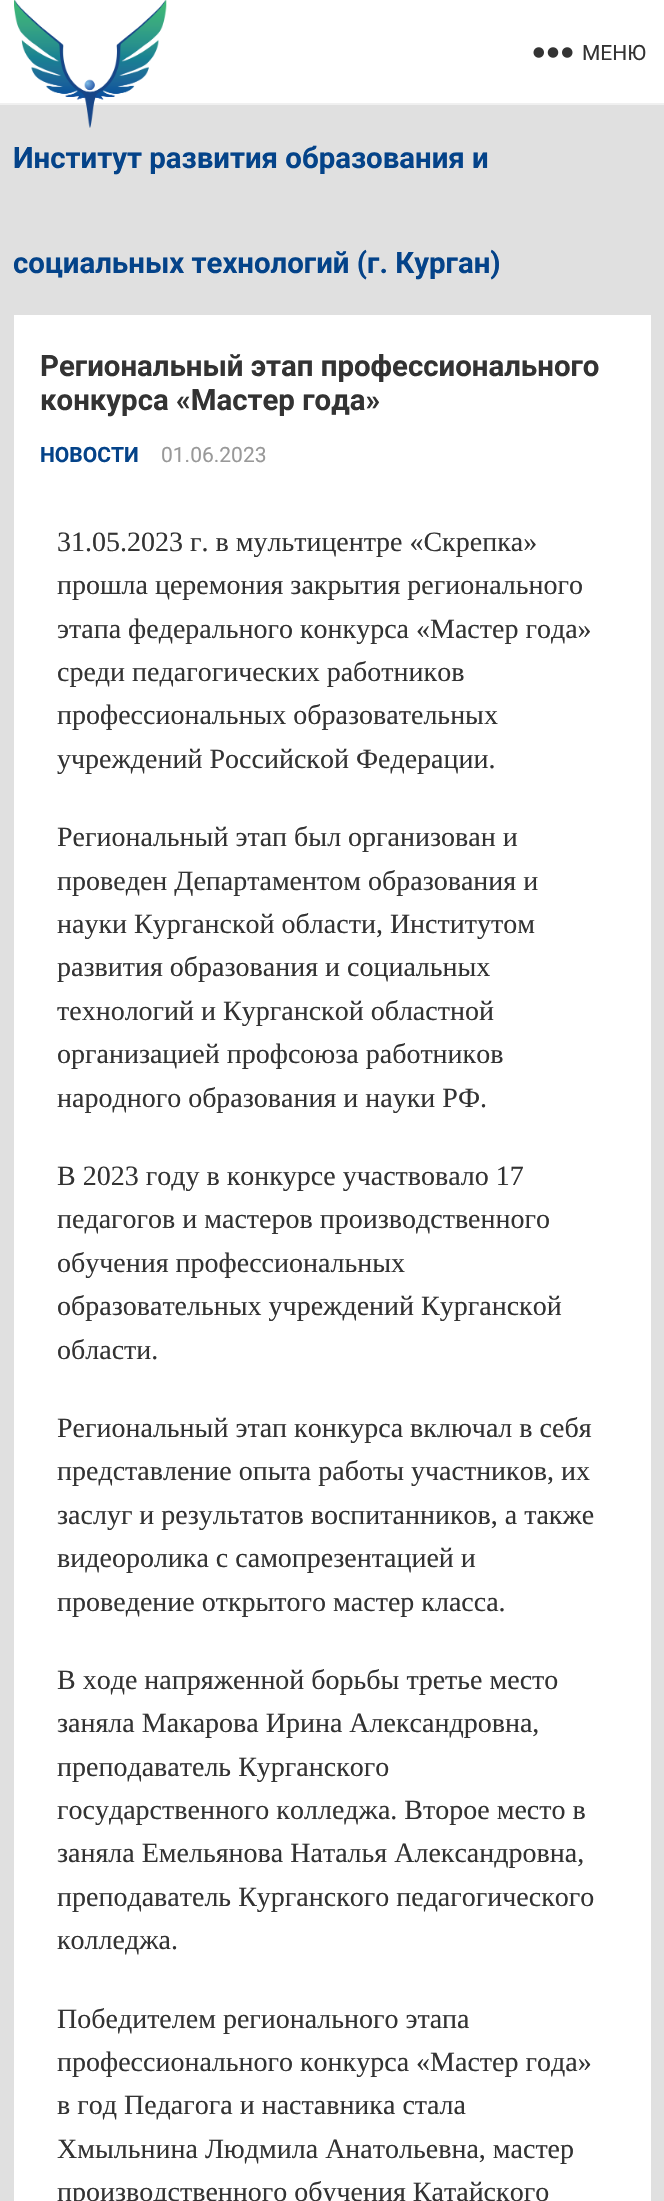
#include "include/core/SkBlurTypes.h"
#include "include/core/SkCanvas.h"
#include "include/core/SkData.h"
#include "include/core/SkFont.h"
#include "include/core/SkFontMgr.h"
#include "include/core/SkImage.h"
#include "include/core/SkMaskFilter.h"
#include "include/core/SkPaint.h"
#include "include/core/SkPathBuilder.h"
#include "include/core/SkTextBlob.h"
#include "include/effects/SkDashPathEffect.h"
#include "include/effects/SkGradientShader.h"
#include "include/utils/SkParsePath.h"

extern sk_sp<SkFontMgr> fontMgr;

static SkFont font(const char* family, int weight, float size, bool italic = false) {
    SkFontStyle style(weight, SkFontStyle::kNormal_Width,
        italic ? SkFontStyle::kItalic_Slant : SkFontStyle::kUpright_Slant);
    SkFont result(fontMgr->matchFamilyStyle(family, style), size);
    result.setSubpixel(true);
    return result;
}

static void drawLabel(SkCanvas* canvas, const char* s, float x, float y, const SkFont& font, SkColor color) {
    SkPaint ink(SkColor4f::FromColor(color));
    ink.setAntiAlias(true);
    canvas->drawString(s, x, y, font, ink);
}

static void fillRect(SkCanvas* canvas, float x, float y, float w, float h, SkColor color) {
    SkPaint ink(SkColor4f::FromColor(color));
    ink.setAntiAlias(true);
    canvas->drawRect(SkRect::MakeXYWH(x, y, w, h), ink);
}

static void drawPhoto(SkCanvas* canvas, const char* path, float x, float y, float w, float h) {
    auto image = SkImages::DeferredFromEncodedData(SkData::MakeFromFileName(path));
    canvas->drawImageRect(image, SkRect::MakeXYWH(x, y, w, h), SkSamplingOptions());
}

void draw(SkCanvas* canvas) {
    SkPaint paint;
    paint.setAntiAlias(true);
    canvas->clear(0xFFE0E0E0);
    fillRect(canvas, 0, 0, 664, 103, 0xFFFFFFFF);
    fillRect(canvas, 0, 103, 664, 2, 0xFFF0F0F0);
    drawPhoto(canvas, "assets/img1.png", 533, 47, 40, 11);
    SkFont font1 = font("Roboto", 400, 21);
    drawLabel(canvas, "МЕНЮ", 582, 60, font1, 0xFF333333);
    drawPhoto(canvas, "assets/img2.png", 14, 0, 153, 128);
    SkFont font2 = font("Roboto", 700, 29.4f);
    drawLabel(canvas, "Институт развития образования и", 13, 168, font2, 0xFF044389);
    drawLabel(canvas, "социальных технологий (г. Курган)", 13, 273, font2, 0xFF044389);
    fillRect(canvas, 14, 315, 637, 1886, 0xFFFFFFFF);
    drawLabel(canvas, "Региональный этап профессионального", 40, 376, font2, 0xFF333333);
    drawLabel(canvas, "конкурса «Мастер года»", 40, 410, font2, 0xFF333333);
    SkFont font3 = font("Roboto", 700, 21);
    drawLabel(canvas, "НОВОСТИ", 40, 462, font3, 0xFF044389);
    drawLabel(canvas, "01.06.2023", 161, 462, font1, 0xFF999999);
    SkFont font4 = font("Liberation Serif", 400, 28);
    drawLabel(canvas, "31.05.2023 г. в мультицентре «Скрепка»", 57, 551, font4, 0xFF333333);
    drawLabel(canvas, "прошла церемония закрытия регионального", 57, 594, font4, 0xFF333333);
    drawLabel(canvas, "этапа федерального конкурса «Мастер года»", 57, 638, font4, 0xFF333333);
    drawLabel(canvas, "среди педагогических работников", 57, 681, font4, 0xFF333333);
    drawLabel(canvas, "профессиональных образовательных", 57, 724, font4, 0xFF333333);
    drawLabel(canvas, "учреждений Российской Федерации.", 57, 768, font4, 0xFF333333);
    drawLabel(canvas, "Региональный этап был организован и", 57, 846, font4, 0xFF333333);
    drawLabel(canvas, "проведен Департаментом образования и", 57, 890, font4, 0xFF333333);
    drawLabel(canvas, "науки Курганской области, Институтом", 57, 933, font4, 0xFF333333);
    drawLabel(canvas, "развития образования и социальных", 57, 976, font4, 0xFF333333);
    drawLabel(canvas, "технологий и Курганской областной", 57, 1020, font4, 0xFF333333);
    drawLabel(canvas, "организацией профсоюза работников", 57, 1063, font4, 0xFF333333);
    drawLabel(canvas, "народного образования и науки РФ.", 57, 1107, font4, 0xFF333333);
    drawLabel(canvas, "В 2023 году в конкурсе участвовало 17", 57, 1185, font4, 0xFF333333);
    drawLabel(canvas, "педагогов и мастеров производственного", 57, 1228, font4, 0xFF333333);
    drawLabel(canvas, "обучения профессиональных", 57, 1272, font4, 0xFF333333);
    drawLabel(canvas, "образовательных учреждений Курганской", 57, 1315, font4, 0xFF333333);
    drawLabel(canvas, "области.", 57, 1359, font4, 0xFF333333);
    drawLabel(canvas, "Региональный этап конкурса включал в себя", 57, 1437, font4, 0xFF333333);
    drawLabel(canvas, "представление опыта работы участников, их", 57, 1480, font4, 0xFF333333);
    drawLabel(canvas, "заслуг и результатов воспитанников, а также", 57, 1524, font4, 0xFF333333);
    drawLabel(canvas, "видеоролика с самопрезентацией и", 57, 1567, font4, 0xFF333333);
    drawLabel(canvas, "проведение открытого мастер класса.", 57, 1611, font4, 0xFF333333);
    drawLabel(canvas, "В ходе напряженной борьбы третье место", 57, 1689, font4, 0xFF333333);
    drawLabel(canvas, "заняла Макарова Ирина Александровна,", 57, 1732, font4, 0xFF333333);
    drawLabel(canvas, "преподаватель Курганского", 57, 1776, font4, 0xFF333333);
    drawLabel(canvas, "государственного колледжа. Второе место в", 57, 1819, font4, 0xFF333333);
    drawLabel(canvas, "заняла Емельянова Наталья Александровна,", 57, 1862, font4, 0xFF333333);
    drawLabel(canvas, "преподаватель Курганского педагогического", 57, 1906, font4, 0xFF333333);
    drawLabel(canvas, "колледжа.", 57, 1949, font4, 0xFF333333);
    drawLabel(canvas, "Победителем регионального этапа", 57, 2028, font4, 0xFF333333);
    drawLabel(canvas, "профессионального конкурса «Мастер года»", 57, 2071, font4, 0xFF333333);
    drawLabel(canvas, "в год Педагога и наставника стала", 57, 2114, font4, 0xFF333333);
    drawLabel(canvas, "Хмыльнина Людмила Анатольевна, мастер", 57, 2158, font4, 0xFF333333);
    drawLabel(canvas, "производственного обучения Катайского", 57, 2201, font4, 0xFF333333);
}
